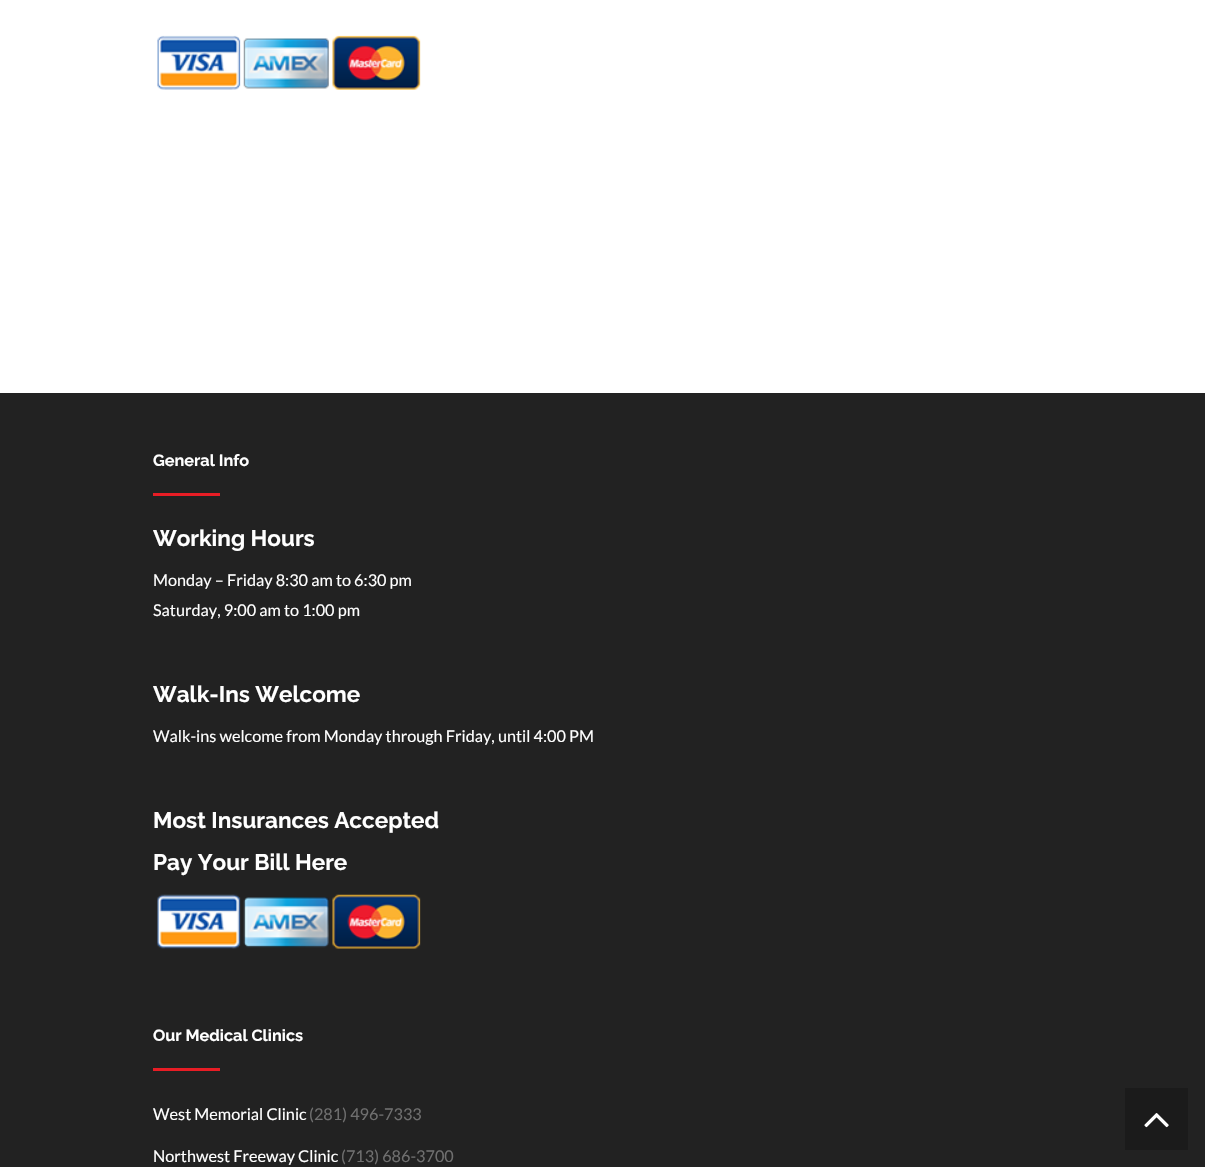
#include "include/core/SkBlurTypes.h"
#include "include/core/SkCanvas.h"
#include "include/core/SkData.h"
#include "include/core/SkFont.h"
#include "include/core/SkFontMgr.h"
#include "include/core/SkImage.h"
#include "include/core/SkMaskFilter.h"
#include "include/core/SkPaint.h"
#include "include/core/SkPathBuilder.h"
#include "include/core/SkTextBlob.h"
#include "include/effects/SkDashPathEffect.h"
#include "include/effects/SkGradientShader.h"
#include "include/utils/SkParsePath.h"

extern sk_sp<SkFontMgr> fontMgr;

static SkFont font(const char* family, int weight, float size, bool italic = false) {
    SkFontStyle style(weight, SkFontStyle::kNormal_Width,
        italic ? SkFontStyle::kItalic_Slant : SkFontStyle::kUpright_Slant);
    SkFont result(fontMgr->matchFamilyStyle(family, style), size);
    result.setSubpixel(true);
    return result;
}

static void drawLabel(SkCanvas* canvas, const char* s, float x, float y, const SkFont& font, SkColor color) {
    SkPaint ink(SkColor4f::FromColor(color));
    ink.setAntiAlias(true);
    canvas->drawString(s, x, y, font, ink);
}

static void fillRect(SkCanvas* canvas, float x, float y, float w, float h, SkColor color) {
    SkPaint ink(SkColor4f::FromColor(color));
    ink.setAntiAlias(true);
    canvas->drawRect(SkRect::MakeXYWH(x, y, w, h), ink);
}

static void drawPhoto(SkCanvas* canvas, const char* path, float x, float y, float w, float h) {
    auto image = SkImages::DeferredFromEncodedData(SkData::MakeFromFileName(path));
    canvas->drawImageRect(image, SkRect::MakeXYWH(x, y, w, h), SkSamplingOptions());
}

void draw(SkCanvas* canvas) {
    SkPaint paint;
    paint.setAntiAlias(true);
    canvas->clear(0xFF222222);
    fillRect(canvas, 0, 0, 1205, 393, 0xFFFFFFFF);
    drawPhoto(canvas, "assets/img1.png", 157, 35, 264, 55);
    SkFont font1 = font("Raleway", 700, 16.25f);
    drawLabel(canvas, "General Info", 153, 466, font1, 0xFFFFFFFF);
    fillRect(canvas, 153, 493, 67, 3, 0xFFE81D25);
    SkFont font2 = font("Raleway", 700, 22.5f);
    drawLabel(canvas, "Working Hours", 153, 546, font2, 0xFFFFFFFF);
    SkFont font3 = font("Lato", 400, 16.25f);
    drawLabel(canvas, "Monday – Friday 8:30 am to 6:30 pm", 153, 586, font3, 0xFFFFFFFF);
    drawLabel(canvas, "Saturday, 9:00 am to 1:00 pm", 153, 616, font3, 0xFFFFFFFF);
    drawLabel(canvas, "Walk-Ins Welcome", 153, 702, font2, 0xFFFFFFFF);
    drawLabel(canvas, "Walk-ins welcome from Monday through Friday, until 4:00 PM", 153, 742, font3, 0xFFFFFFFF);
    drawLabel(canvas, "Most Insurances Accepted", 153, 828, font2, 0xFFFFFFFF);
    drawLabel(canvas, "Pay Your Bill Here", 153, 870, font2, 0xFFFFFFFF);
    drawPhoto(canvas, "assets/img2.png", 157, 894, 264, 55);
    drawLabel(canvas, "Our Medical Clinics", 153, 1041, font1, 0xFFFFFFFF);
    fillRect(canvas, 153, 1068, 67, 3, 0xFFE81D25);
    drawLabel(canvas, "West Memorial Clinic", 153, 1120, font3, 0xFFFFFFFF);
    drawLabel(canvas, "(281) 496-7333", 309, 1120, font3, 0xFF6F6F6F);
    drawLabel(canvas, "Northwest Freeway Clinic", 153, 1162, font3, 0xFFFFFFFF);
    drawLabel(canvas, "(713) 686-3700", 341, 1162, font3, 0xFF6F6F6F);
    fillRect(canvas, 1125, 1088, 63, 62, 0xFF1B1B1B);
    drawPhoto(canvas, "assets/img3.png", 1144, 1113, 25, 15);
}
